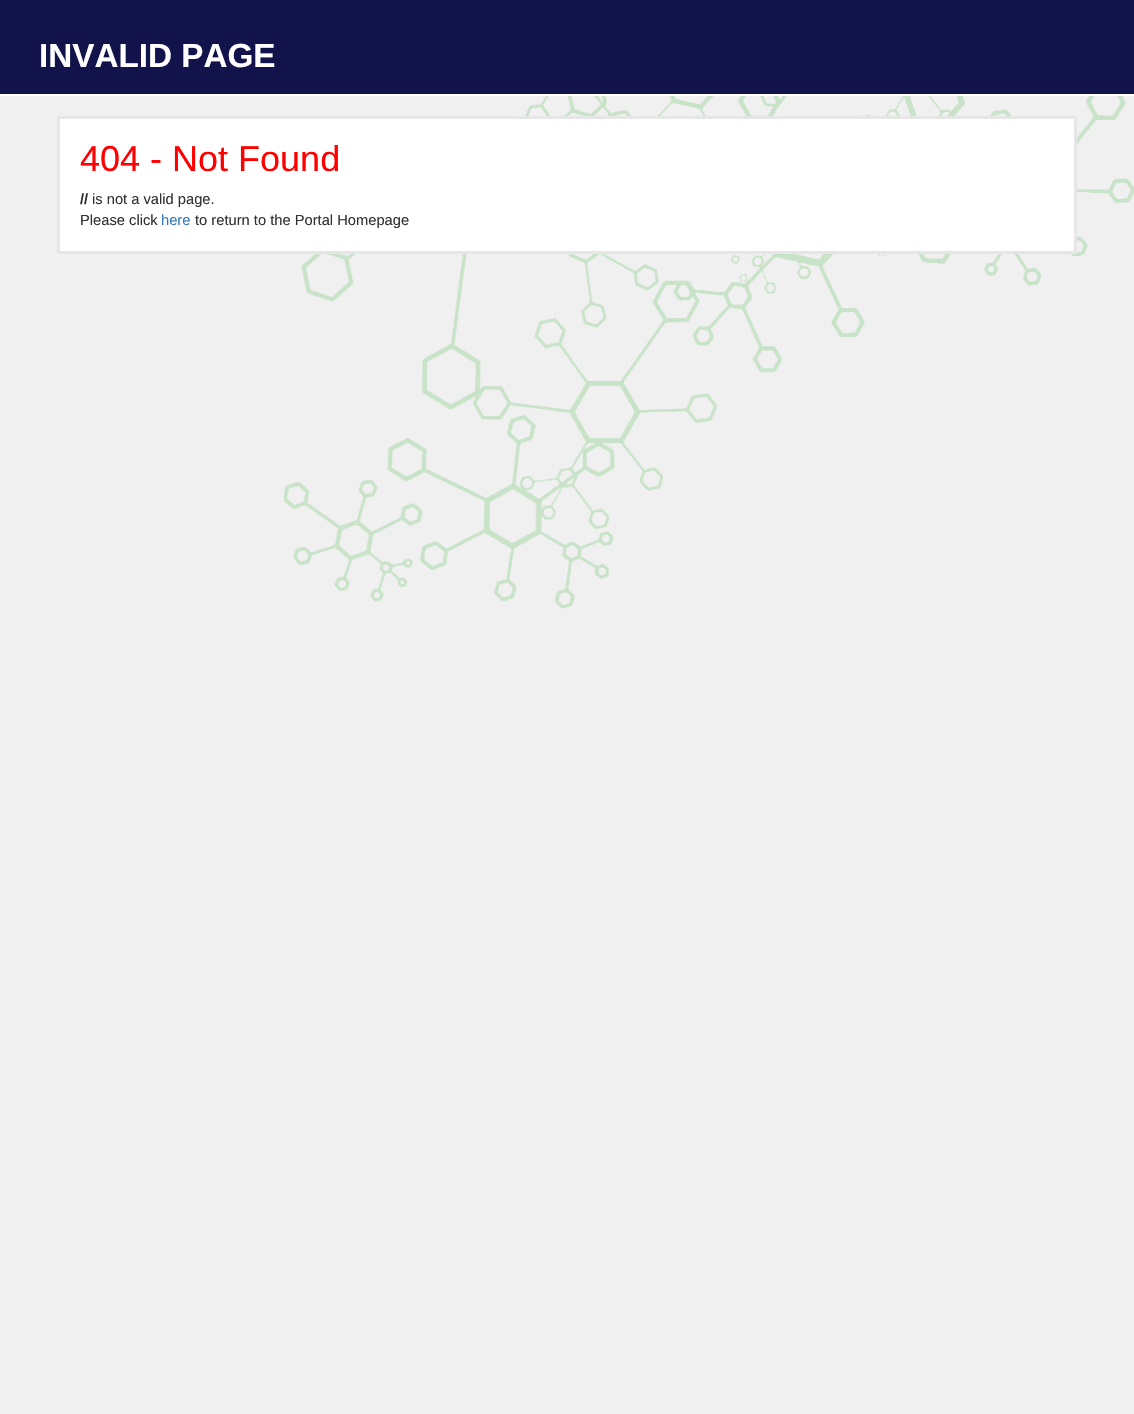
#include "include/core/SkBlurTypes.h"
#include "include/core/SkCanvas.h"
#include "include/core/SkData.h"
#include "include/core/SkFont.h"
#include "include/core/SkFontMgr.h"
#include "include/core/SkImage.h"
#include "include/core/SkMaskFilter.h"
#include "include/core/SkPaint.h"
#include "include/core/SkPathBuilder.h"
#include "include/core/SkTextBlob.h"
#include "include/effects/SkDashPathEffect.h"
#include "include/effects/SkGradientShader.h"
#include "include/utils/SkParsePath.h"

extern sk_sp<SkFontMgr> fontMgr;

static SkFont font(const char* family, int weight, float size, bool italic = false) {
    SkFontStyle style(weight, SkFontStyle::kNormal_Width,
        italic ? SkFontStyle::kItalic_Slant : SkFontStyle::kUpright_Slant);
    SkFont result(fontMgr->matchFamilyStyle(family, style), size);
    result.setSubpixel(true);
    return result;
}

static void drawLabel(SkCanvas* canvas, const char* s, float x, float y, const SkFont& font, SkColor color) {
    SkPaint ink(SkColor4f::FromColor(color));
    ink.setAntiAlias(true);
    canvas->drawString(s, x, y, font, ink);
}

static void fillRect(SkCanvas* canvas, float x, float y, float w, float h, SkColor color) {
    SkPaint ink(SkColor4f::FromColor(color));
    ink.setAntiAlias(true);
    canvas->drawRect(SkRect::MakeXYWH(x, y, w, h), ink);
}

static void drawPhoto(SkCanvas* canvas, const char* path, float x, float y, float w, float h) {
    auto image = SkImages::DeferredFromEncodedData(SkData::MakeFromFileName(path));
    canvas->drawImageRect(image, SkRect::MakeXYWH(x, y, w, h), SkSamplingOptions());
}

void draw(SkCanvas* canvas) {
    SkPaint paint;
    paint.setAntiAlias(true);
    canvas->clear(0xFFF0F0F0);
    drawPhoto(canvas, "assets/img1.png", 284, 254, 800, 355);
    drawPhoto(canvas, "assets/img2.png", 525, 96, 609, 158);
    fillRect(canvas, 0, 0, 1134, 94, 0xFF11134A);
    fillRect(canvas, 0, 94, 1134, 2, 0xFFFFFFFF);
    SkFont font1 = font("Liberation Sans", 700, 33.25f);
    drawLabel(canvas, "INVALID PAGE", 39, 67, font1, 0xFFFFFFFF);
    paint.setColor(0xFFFFFFFF);
    canvas->drawRect(SkRect::MakeXYWH(58.5f, 117.5f, 1017, 135), paint);
    paint.setStroke(true);
    paint.setStrokeWidth(3);
    paint.setColor(0xFFE6E6E6);
    canvas->drawRect(SkRect::MakeXYWH(58.5f, 117.5f, 1017, 135), paint);
    SkFont font2 = font("Liberation Sans", 400, 36);
    drawLabel(canvas, "404 - Not Found", 80, 171, font2, 0xFFFF0000);
    SkFont font3 = font("Liberation Sans", 700, 14.7f);
    drawLabel(canvas, "//", 80, 204, font3, 0xFF333333);
    SkFont font4 = font("Liberation Sans", 400, 14.7f);
    drawLabel(canvas, "is not a valid page.", 92, 204, font4, 0xFF333333);
    drawLabel(canvas, "Please click", 80, 225, font4, 0xFF333333);
    drawLabel(canvas, "here", 161, 225, font4, 0xFF337AB7);
    drawLabel(canvas, "to return to the Portal Homepage", 195, 225, font4, 0xFF333333);
}
